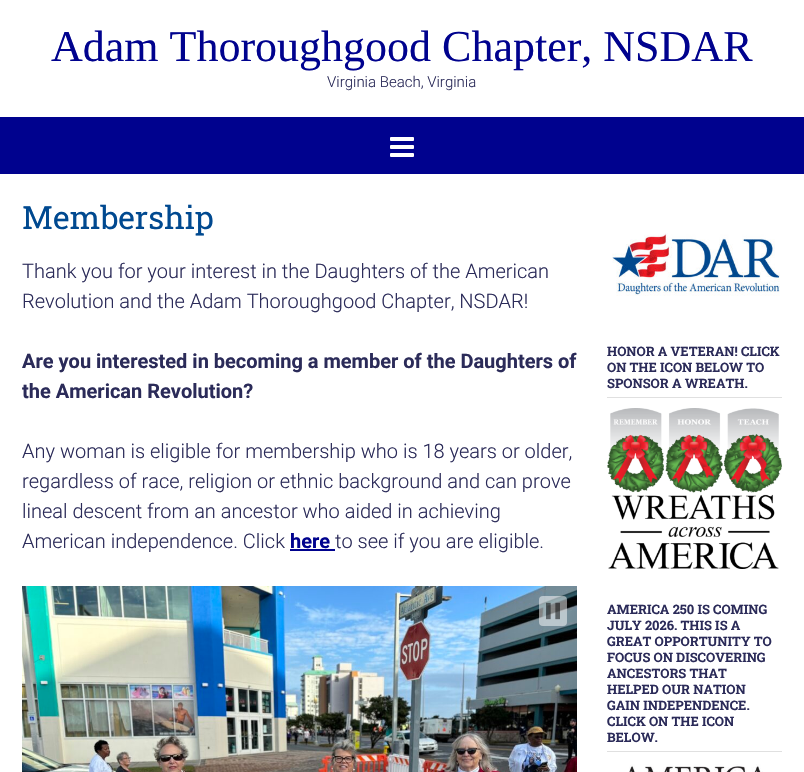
#include "include/core/SkBlurTypes.h"
#include "include/core/SkCanvas.h"
#include "include/core/SkData.h"
#include "include/core/SkFont.h"
#include "include/core/SkFontMgr.h"
#include "include/core/SkImage.h"
#include "include/core/SkMaskFilter.h"
#include "include/core/SkPaint.h"
#include "include/core/SkPathBuilder.h"
#include "include/core/SkTextBlob.h"
#include "include/effects/SkDashPathEffect.h"
#include "include/effects/SkGradientShader.h"
#include "include/utils/SkParsePath.h"

extern sk_sp<SkFontMgr> fontMgr;

static SkFont font(const char* family, int weight, float size, bool italic = false) {
    SkFontStyle style(weight, SkFontStyle::kNormal_Width,
        italic ? SkFontStyle::kItalic_Slant : SkFontStyle::kUpright_Slant);
    SkFont result(fontMgr->matchFamilyStyle(family, style), size);
    result.setSubpixel(true);
    return result;
}

static void drawLabel(SkCanvas* canvas, const char* s, float x, float y, const SkFont& font, SkColor color) {
    SkPaint ink(SkColor4f::FromColor(color));
    ink.setAntiAlias(true);
    canvas->drawString(s, x, y, font, ink);
}

static void fillRect(SkCanvas* canvas, float x, float y, float w, float h, SkColor color) {
    SkPaint ink(SkColor4f::FromColor(color));
    ink.setAntiAlias(true);
    canvas->drawRect(SkRect::MakeXYWH(x, y, w, h), ink);
}

static void fillRRect(SkCanvas* canvas, float x, float y, float w, float h, float radius, SkColor color) {
    SkPaint ink(SkColor4f::FromColor(color));
    ink.setAntiAlias(true);
    canvas->drawRoundRect(SkRect::MakeXYWH(x, y, w, h), radius, radius, ink);
}

static void drawPhoto(SkCanvas* canvas, const char* path, float x, float y, float w, float h) {
    auto image = SkImages::DeferredFromEncodedData(SkData::MakeFromFileName(path));
    canvas->drawImageRect(image, SkRect::MakeXYWH(x, y, w, h), SkSamplingOptions());
}

void draw(SkCanvas* canvas) {
    SkPaint paint;
    paint.setAntiAlias(true);
    canvas->clear(0xFFFFFFFF);
    SkFont font1 = font("Liberation Serif", 400, 44);
    drawLabel(canvas, "Adam Thoroughgood Chapter, NSDAR", 51, 61, font1, 0xFF00028E);
    SkFont font2 = font("Roboto", 300, 15);
    drawLabel(canvas, "Virginia Beach, Virginia", 327, 87, font2, 0xFF2B2B59);
    fillRect(canvas, 0, 117, 804, 57, 0xFF00028E);
    drawPhoto(canvas, "assets/img1.png", 390, 137, 24, 20);
    SkFont font3 = font("Roboto Slab", 400, 32);
    drawLabel(canvas, "Membership", 22, 229, font3, 0xFF004990);
    SkFont font4 = font("Roboto", 300, 20);
    drawLabel(canvas, "Thank you for your interest in the Daughters of the American", 22, 278, font4, 0xFF2B2B59);
    drawLabel(canvas, "Revolution and the Adam Thoroughgood Chapter, NSDAR!", 22, 308, font4, 0xFF2B2B59);
    SkFont font5 = font("Roboto", 700, 20);
    drawLabel(canvas, "Are you interested in becoming a member of the Daughters of", 22, 368, font5, 0xFF2B2B59);
    drawLabel(canvas, "the American Revolution?", 22, 398, font5, 0xFF2B2B59);
    drawLabel(canvas, "Any woman is eligible for membership who is 18 years or older,", 22, 458, font4, 0xFF2B2B59);
    drawLabel(canvas, "regardless of race, religion or ethnic background and can prove", 22, 488, font4, 0xFF2B2B59);
    drawLabel(canvas, "lineal descent from an ancestor who aided in achieving", 22, 518, font4, 0xFF2B2B59);
    drawLabel(canvas, "American independence. Click", 22, 548, font4, 0xFF2B2B59);
    drawLabel(canvas, "here", 290, 548, font5, 0xFF00028E);
    fillRect(canvas, 290, 549, 45, 2, 0xFF00028E);
    drawLabel(canvas, "to see if you are eligible.", 335, 548, font4, 0xFF2B2B59);
    drawPhoto(canvas, "assets/img2.png", 22, 586, 555, 186);
    fillRRect(canvas, 539, 596, 28, 30, 4, 0x80FFFFFF);
    drawPhoto(canvas, "assets/img3.png", 546, 602, 14, 18);
    drawPhoto(canvas, "assets/img4.png", 612, 233, 168, 63);
    fillRect(canvas, 607, 397, 175, 1, 0xFFE0E0E0);
    SkFont font6 = font("Roboto Slab", 700, 13);
    drawLabel(canvas, "HONOR A VETERAN! CLICK", 607, 356, font6, 0xFF2B2B59);
    drawLabel(canvas, "ON THE ICON BELOW TO", 607, 372, font6, 0xFF2B2B59);
    drawLabel(canvas, "SPONSOR A WREATH.", 607, 388, font6, 0xFF2B2B59);
    drawPhoto(canvas, "assets/img5.png", 607, 408, 175, 161);
    fillRect(canvas, 607, 751, 175, 1, 0xFFE0E0E0);
    drawLabel(canvas, "AMERICA 250 IS COMING", 607, 614, font6, 0xFF2B2B59);
    drawLabel(canvas, "JULY 2026. THIS IS A", 607, 630, font6, 0xFF2B2B59);
    drawLabel(canvas, "GREAT OPPORTUNITY TO", 607, 646, font6, 0xFF2B2B59);
    drawLabel(canvas, "FOCUS ON DISCOVERING", 607, 662, font6, 0xFF2B2B59);
    drawLabel(canvas, "ANCESTORS THAT", 607, 678, font6, 0xFF2B2B59);
    drawLabel(canvas, "HELPED OUR NATION", 607, 694, font6, 0xFF2B2B59);
    drawLabel(canvas, "GAIN INDEPENDENCE.", 607, 710, font6, 0xFF2B2B59);
    drawLabel(canvas, "CLICK ON THE ICON", 607, 726, font6, 0xFF2B2B59);
    drawLabel(canvas, "BELOW.", 607, 742, font6, 0xFF2B2B59);
    drawPhoto(canvas, "assets/img6.png", 629, 764, 134, 8);
}
